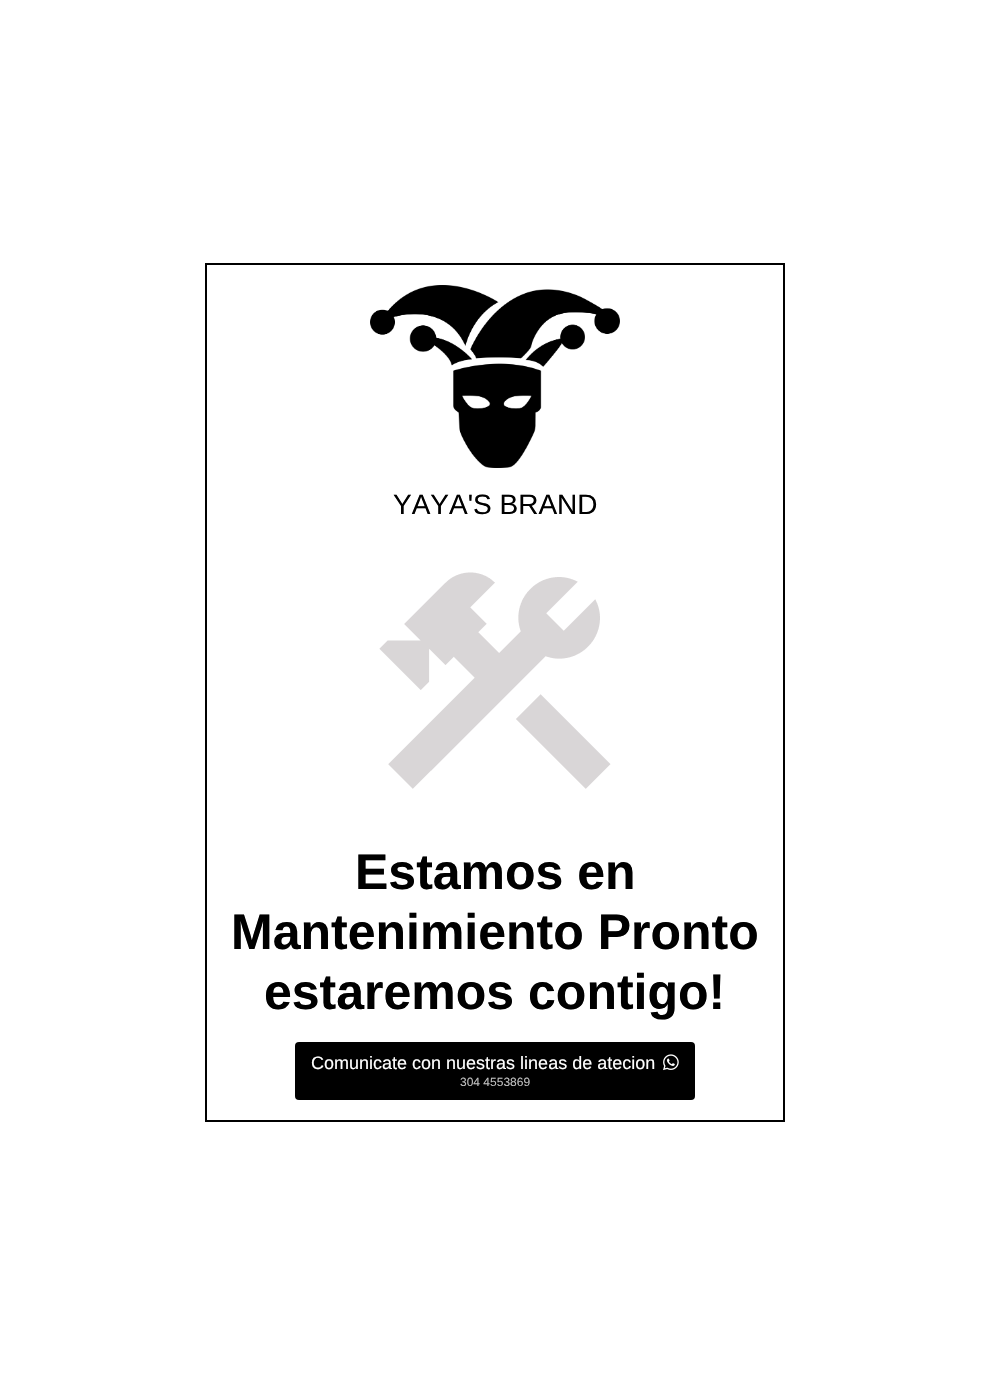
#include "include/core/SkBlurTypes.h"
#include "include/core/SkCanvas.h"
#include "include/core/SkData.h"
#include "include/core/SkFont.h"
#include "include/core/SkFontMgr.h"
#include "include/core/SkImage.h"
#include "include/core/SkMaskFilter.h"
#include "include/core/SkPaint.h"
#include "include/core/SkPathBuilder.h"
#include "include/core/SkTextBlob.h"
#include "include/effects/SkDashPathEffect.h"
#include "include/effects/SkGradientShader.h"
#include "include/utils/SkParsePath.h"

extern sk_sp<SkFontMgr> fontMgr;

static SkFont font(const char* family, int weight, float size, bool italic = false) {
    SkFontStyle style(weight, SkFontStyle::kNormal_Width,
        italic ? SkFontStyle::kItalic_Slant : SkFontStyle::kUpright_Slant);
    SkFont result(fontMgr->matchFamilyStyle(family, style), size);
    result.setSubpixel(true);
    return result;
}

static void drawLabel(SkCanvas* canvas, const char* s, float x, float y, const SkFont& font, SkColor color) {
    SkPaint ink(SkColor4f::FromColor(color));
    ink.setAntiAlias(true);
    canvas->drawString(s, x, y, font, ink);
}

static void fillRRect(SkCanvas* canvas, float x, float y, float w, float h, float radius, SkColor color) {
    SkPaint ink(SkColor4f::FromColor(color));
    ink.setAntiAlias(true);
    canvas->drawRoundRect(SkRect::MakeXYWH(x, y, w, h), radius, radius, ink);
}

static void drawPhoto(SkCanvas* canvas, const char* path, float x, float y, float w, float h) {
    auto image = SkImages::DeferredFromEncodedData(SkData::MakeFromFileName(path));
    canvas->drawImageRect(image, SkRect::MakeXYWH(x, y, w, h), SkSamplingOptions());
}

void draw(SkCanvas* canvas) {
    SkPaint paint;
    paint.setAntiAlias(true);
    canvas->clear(0xFFFFFFFF);
    paint.setStroke(true);
    paint.setStrokeWidth(2);
    paint.setColor(0xFF000000);
    canvas->drawRect(SkRect::MakeXYWH(206, 264, 578, 857), paint);
    drawPhoto(canvas, "assets/img1.png", 370, 285, 250, 183);
    SkFont font1 = font("Liberation Sans", 400, 28);
    drawLabel(canvas, "YAYA'S BRAND", 393, 514, font1, 0xFF000000);
    drawPhoto(canvas, "assets/img2.png", 379, 572, 232, 217);
    SkFont font2 = font("Liberation Sans", 700, 50);
    drawLabel(canvas, "Estamos en", 355, 889, font2, 0xFF000000);
    drawLabel(canvas, "Mantenimiento Pronto", 231, 949, font2, 0xFF000000);
    drawLabel(canvas, "estaremos contigo!", 264, 1009, font2, 0xFF000000);
    fillRRect(canvas, 295, 1042, 400, 58, 4, 0xFF000000);
    SkFont font3 = font("Liberation Sans", 400, 18);
    drawLabel(canvas, "Comunicate con nuestras lineas de atecion", 311, 1069, font3, 0xFFFFFFFF);
    drawPhoto(canvas, "assets/img3.png", 663, 1054, 16, 17);
    SkFont font4 = font("Liberation Sans", 400, 12);
    drawLabel(canvas, "304 4553869", 460, 1086, font4, 0xFFBFBFBF);
}
